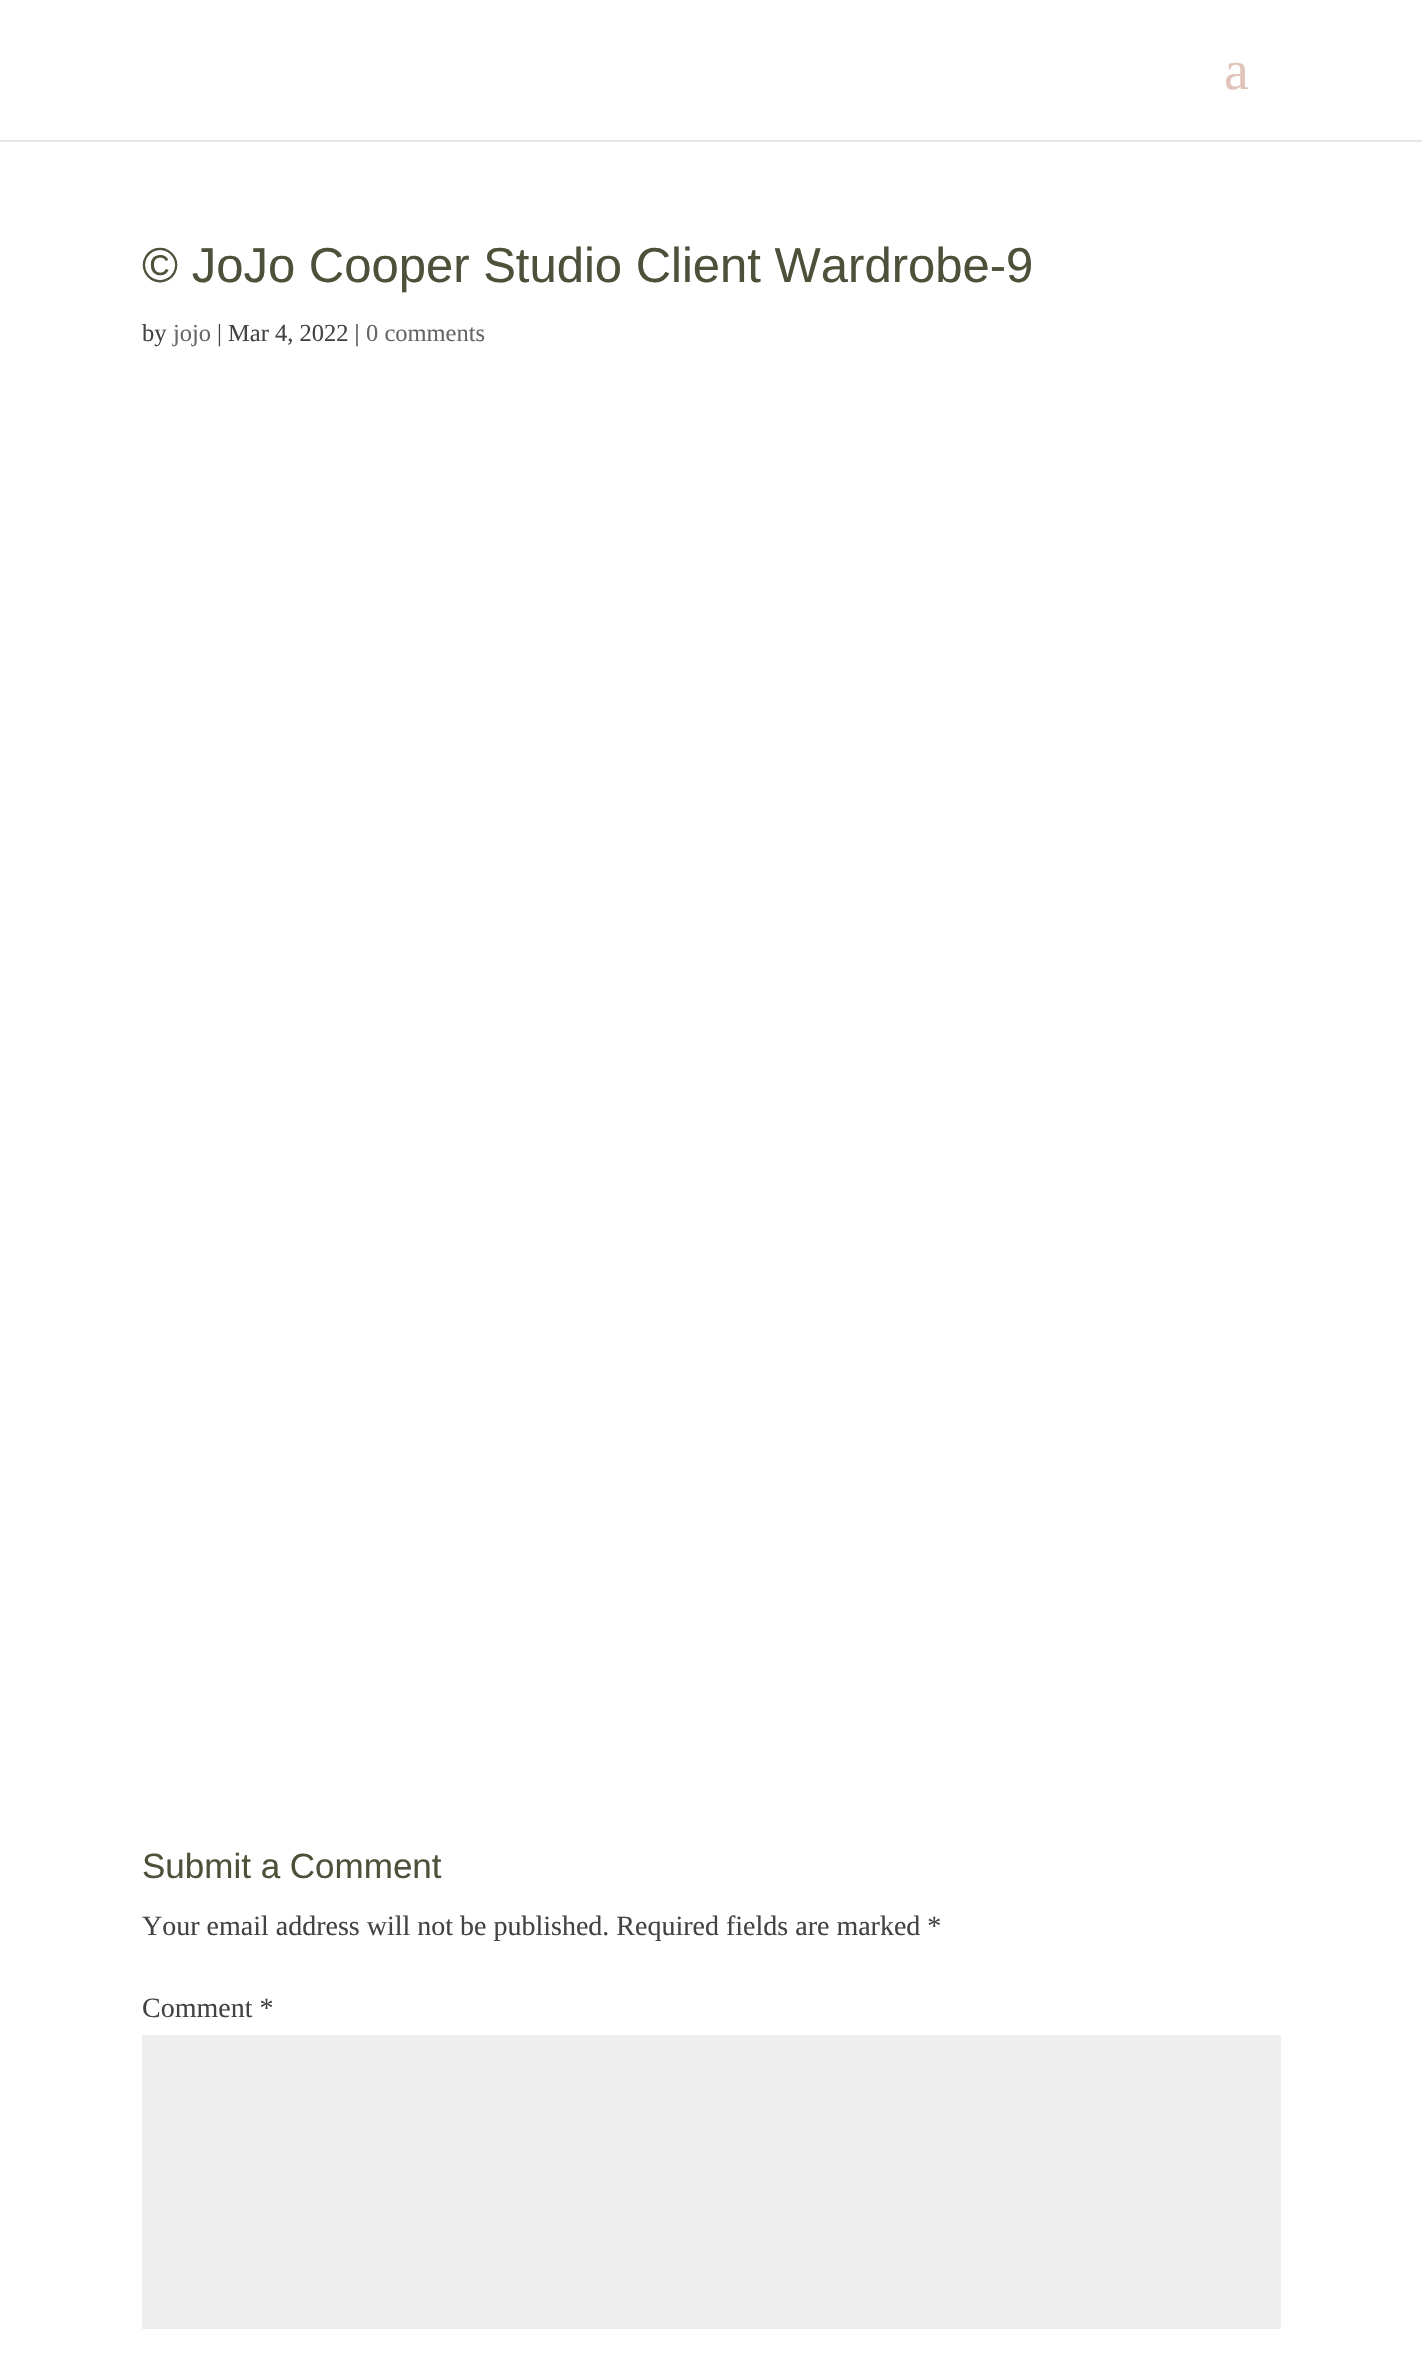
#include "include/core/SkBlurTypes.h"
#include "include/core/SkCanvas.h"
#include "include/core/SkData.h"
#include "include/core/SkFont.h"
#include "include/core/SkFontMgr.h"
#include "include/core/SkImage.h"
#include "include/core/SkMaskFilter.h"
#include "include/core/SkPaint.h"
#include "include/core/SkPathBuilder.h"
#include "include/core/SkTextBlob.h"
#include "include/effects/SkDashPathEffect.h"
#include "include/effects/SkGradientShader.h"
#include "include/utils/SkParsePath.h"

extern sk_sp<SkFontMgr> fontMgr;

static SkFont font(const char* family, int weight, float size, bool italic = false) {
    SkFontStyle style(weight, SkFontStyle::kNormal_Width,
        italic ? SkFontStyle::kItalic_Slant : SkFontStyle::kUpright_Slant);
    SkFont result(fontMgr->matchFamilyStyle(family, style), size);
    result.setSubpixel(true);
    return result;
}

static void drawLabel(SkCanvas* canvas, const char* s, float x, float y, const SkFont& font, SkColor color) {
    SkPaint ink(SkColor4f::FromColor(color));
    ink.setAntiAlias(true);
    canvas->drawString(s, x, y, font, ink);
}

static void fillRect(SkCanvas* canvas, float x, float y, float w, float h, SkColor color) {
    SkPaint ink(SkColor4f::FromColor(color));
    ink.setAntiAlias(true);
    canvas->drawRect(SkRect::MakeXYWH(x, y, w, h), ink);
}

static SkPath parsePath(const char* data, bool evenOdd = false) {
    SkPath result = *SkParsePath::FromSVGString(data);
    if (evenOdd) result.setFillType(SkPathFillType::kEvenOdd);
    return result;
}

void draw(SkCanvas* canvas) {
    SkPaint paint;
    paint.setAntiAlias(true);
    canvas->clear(0xFFFFFFFF);
    paint.setColor(0xFFE6E6E6);
    canvas->drawPath(parsePath("M0 140V142H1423V2V140Z"), paint);
    SkFont font1 = font("Liberation Serif", 400, 56);
    drawLabel(canvas, "a", 1224, 89, font1, 0xFFE0C4B9);
    SkFont font2 = font("Liberation Sans", 400, 49);
    drawLabel(canvas, "© JoJo Cooper Studio Client Wardrobe-9", 142, 282, font2, 0xFF4C523A);
    SkFont font3 = font("Liberation Serif", 400, 24.5f);
    drawLabel(canvas, "by", 142, 341, font3, 0xFF424344);
    drawLabel(canvas, "jojo", 173, 341, font3, 0xFF666666);
    drawLabel(canvas, "| Mar 4, 2022 |", 217, 341, font3, 0xFF424344);
    drawLabel(canvas, "0 comments", 366, 341, font3, 0xFF666666);
    SkFont font4 = font("Liberation Sans", 400, 35);
    drawLabel(canvas, "Submit a Comment", 142, 1878, font4, 0xFF4C523A);
    SkFont font5 = font("Liberation Serif", 400, 28);
    drawLabel(canvas, "Your email address will not be published. Required fields are marked *", 142, 1935, font5, 0xFF424344);
    drawLabel(canvas, "Comment *", 142, 2017, font5, 0xFF424344);
    fillRect(canvas, 142, 2035, 1139, 294, 0xFFEEEEEE);
}
